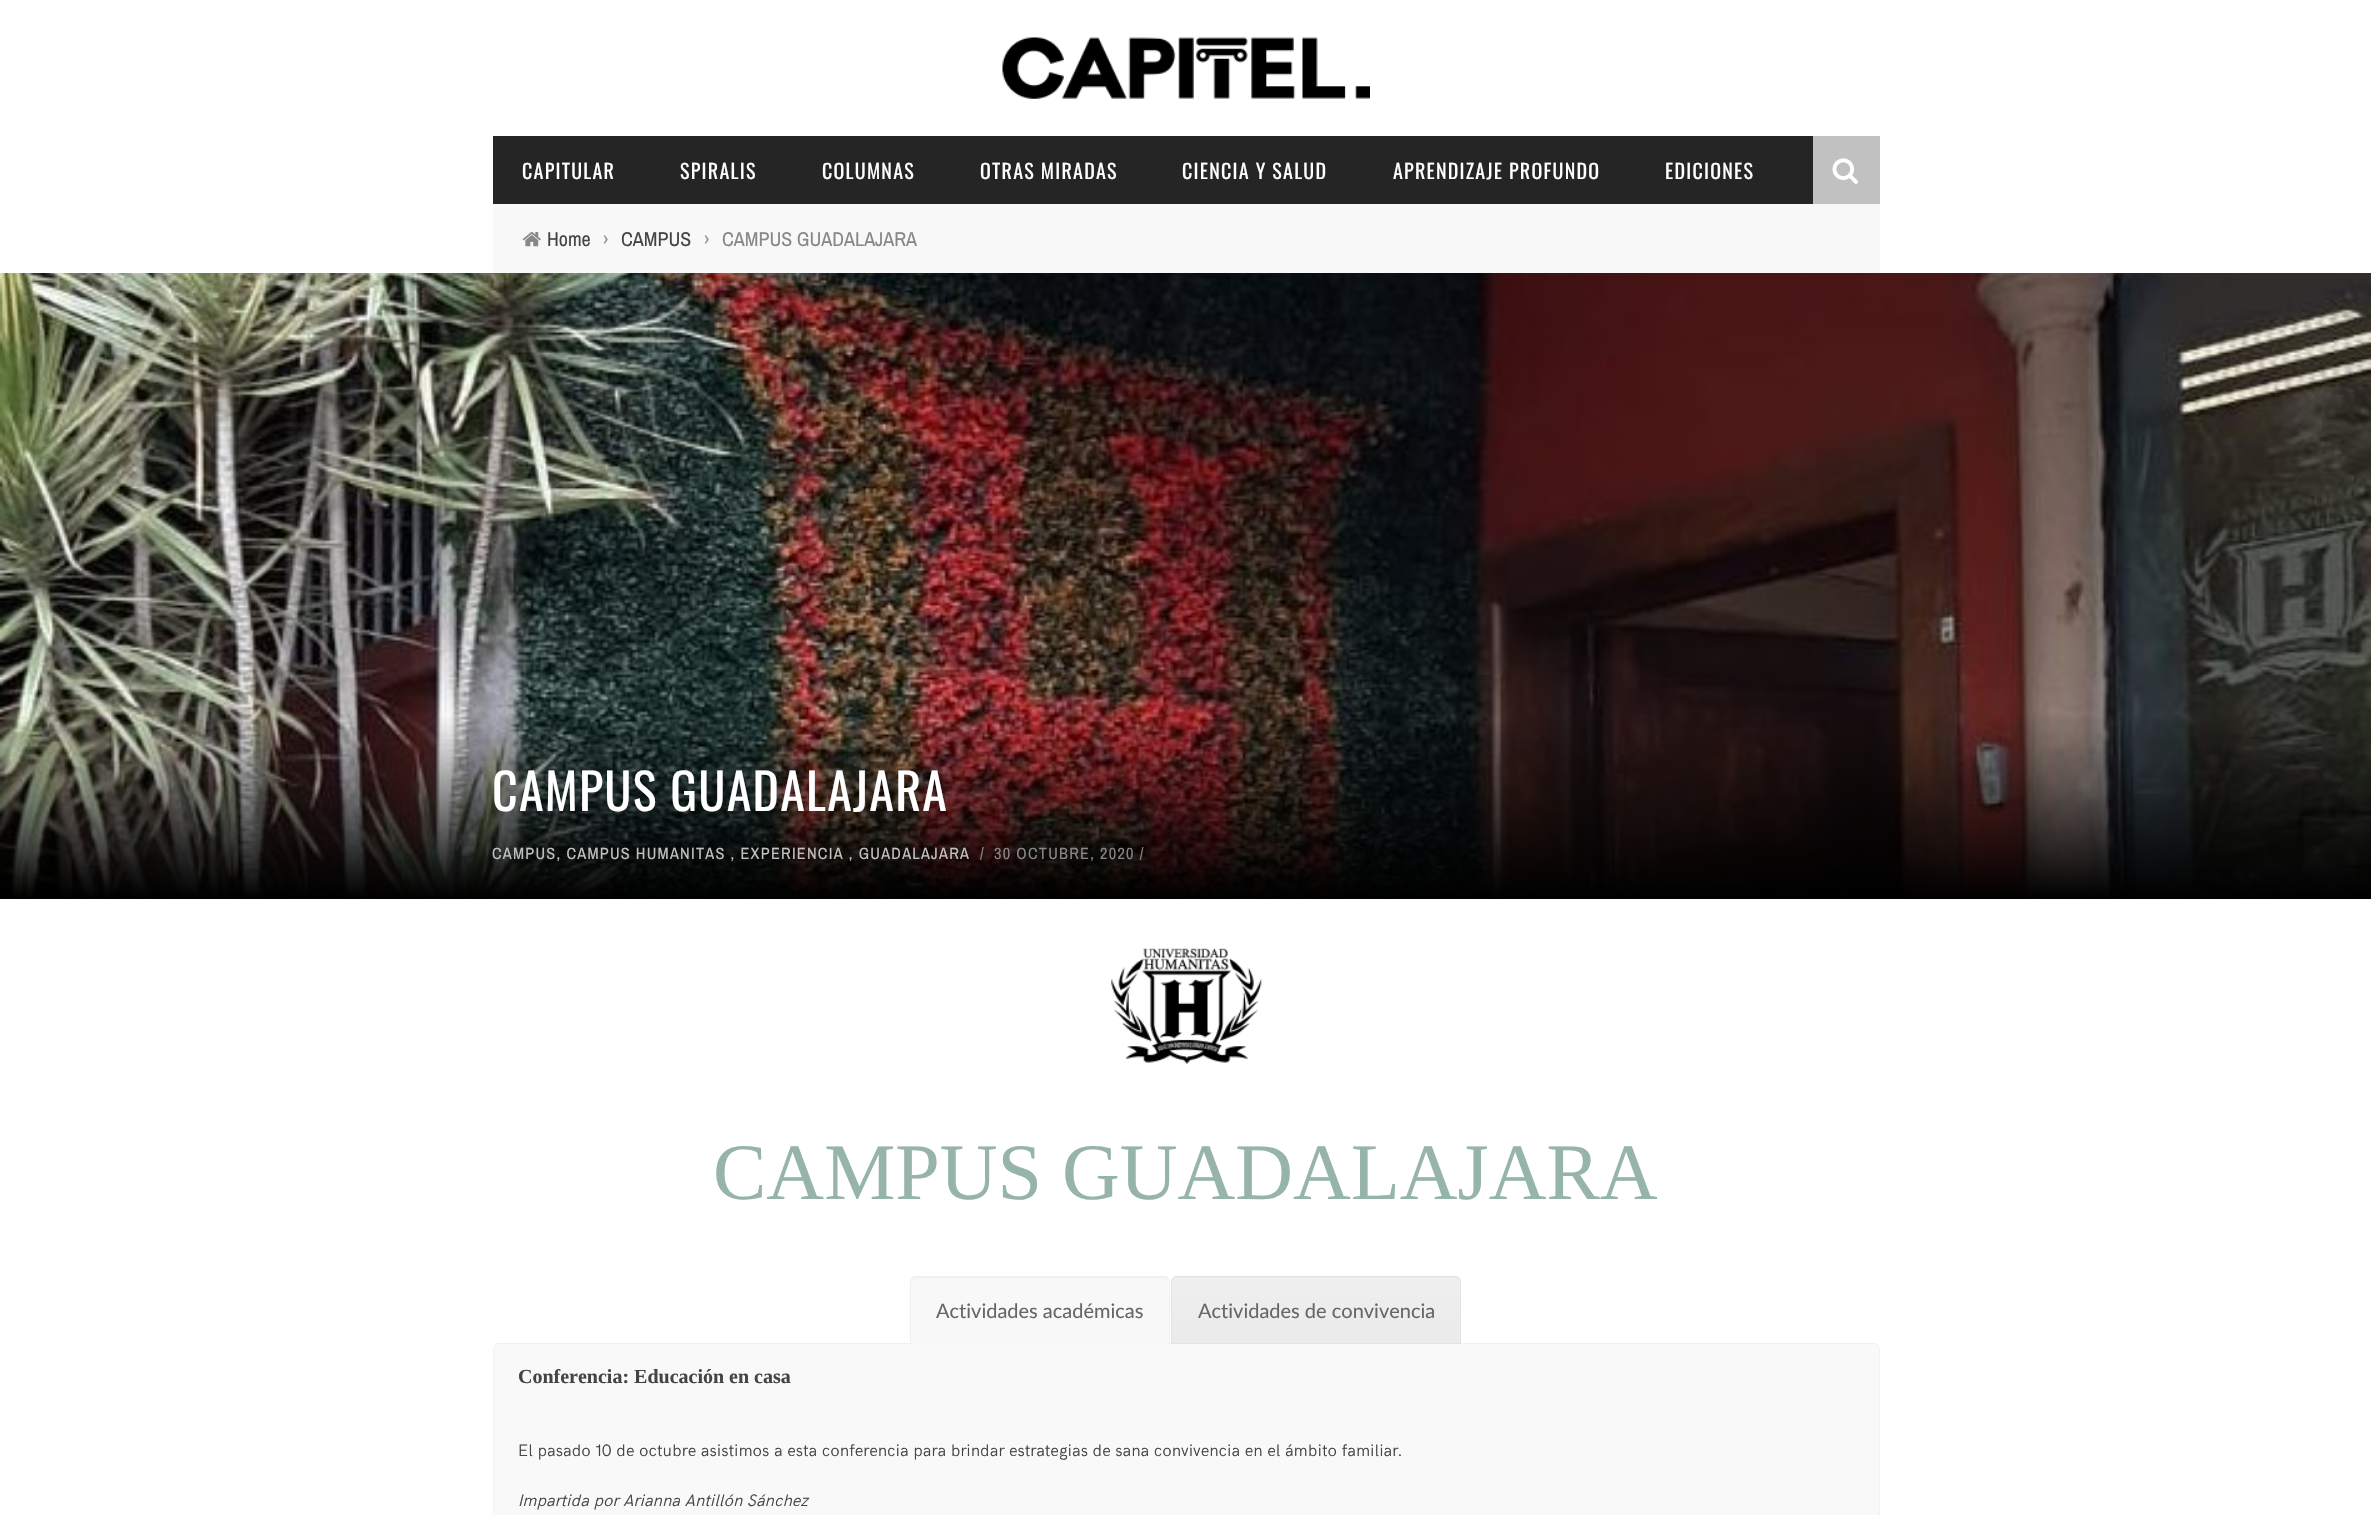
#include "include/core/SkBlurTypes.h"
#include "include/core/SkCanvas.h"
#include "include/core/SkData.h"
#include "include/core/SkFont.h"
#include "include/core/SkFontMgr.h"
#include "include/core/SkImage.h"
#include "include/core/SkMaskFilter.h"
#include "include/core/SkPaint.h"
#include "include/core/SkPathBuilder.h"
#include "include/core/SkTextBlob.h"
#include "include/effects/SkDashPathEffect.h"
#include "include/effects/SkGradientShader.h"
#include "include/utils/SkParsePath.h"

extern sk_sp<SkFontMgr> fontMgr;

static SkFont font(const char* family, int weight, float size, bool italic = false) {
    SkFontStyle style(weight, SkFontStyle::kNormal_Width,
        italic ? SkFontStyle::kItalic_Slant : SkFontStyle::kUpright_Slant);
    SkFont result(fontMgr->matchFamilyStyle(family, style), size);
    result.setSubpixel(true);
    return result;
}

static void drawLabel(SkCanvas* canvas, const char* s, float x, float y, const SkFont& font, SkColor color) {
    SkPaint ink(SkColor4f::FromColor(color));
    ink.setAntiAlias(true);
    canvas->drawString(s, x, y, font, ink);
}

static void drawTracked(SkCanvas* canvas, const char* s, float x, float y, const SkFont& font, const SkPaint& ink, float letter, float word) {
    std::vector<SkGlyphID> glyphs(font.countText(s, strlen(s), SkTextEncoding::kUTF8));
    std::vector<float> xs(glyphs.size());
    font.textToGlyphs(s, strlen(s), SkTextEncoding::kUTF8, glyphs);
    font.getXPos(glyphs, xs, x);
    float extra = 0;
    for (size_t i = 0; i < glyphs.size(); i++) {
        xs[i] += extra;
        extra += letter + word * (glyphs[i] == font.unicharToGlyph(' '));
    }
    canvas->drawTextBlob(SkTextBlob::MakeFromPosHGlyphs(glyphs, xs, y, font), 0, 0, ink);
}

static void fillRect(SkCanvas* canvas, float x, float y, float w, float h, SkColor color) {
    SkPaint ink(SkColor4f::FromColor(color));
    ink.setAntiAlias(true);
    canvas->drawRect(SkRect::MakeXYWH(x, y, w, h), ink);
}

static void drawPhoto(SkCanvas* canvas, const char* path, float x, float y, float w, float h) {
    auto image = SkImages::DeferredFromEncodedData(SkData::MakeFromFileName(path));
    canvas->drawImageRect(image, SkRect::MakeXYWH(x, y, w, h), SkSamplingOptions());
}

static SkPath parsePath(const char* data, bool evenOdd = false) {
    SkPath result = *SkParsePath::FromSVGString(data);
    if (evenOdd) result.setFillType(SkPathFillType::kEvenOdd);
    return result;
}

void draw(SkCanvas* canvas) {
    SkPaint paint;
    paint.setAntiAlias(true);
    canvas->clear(0xFFFFFFFF);
    drawPhoto(canvas, "assets/img1.png", 1002, 37, 368, 62);
    fillRect(canvas, 493, 136, 1320, 68, 0xFF252525);
    SkFont font1 = font("Oswald", 400, 20);
    paint.setColor(0xFFFFFFFF);
    drawTracked(canvas, "CAPITULAR", 522, 179, font1, paint, 1.25f, 0);
    drawTracked(canvas, "SPIRALIS", 680, 179, font1, paint, 1.25f, 0);
    drawTracked(canvas, "COLUMNAS", 822, 179, font1, paint, 1.25f, 0);
    drawTracked(canvas, "OTRAS MIRADAS", 980, 179, font1, paint, 1.25f, 0);
    drawTracked(canvas, "CIENCIA Y SALUD", 1182, 179, font1, paint, 1.25f, 0);
    drawTracked(canvas, "APRENDIZAJE PROFUNDO", 1393, 179, font1, paint, 1.25f, 0);
    drawTracked(canvas, "EDICIONES", 1665, 179, font1, paint, 1.25f, 0);
    fillRect(canvas, 1813, 136, 67, 68, 0xFFC1C1C1);
    drawPhoto(canvas, "assets/img2.png", 1832, 158, 26, 26);
    fillRect(canvas, 493, 204, 1387, 69, 0xFFF8F8F8);
    drawPhoto(canvas, "assets/img3.png", 522, 231, 19, 16);
    SkFont font2 = font("Archivo Narrow", 400, 20);
    drawLabel(canvas, "Home", 547, 246, font2, 0xFF444444);
    drawLabel(canvas, "›", 603, 246, font2, 0xFF8D97A1);
    drawLabel(canvas, "CAMPUS", 621, 246, font2, 0xFF444444);
    drawLabel(canvas, "›", 704, 246, font2, 0xFF8D97A1);
    drawLabel(canvas, "CAMPUS GUADALAJARA", 722, 246, font2, 0xFF888888);
    drawPhoto(canvas, "assets/img4.png", 0, 273, 2371, 626);
    SkFont font3 = font("Oswald", 400, 50);
    drawTracked(canvas, "CAMPUS GUADALAJARA", 492, 811, font3, paint, 1.25f, 0);
    SkFont font4 = font("Archivo Narrow", 400, 16.25f);
    paint.setColor(0xFFC1C1C1);
    drawTracked(canvas, "CAMPUS, CAMPUS HUMANITAS , EXPERIENCIA , GUADALAJARA", 492, 859, font4, paint, 1.25f, 0);
    paint.setColor(0xFF888888);
    drawTracked(canvas, "/", 980, 859, font4, paint, 1.25f, 0);
    drawTracked(canvas, "30 OCTUBRE, 2020 /", 994, 859, font4, paint, 1.25f, 0);
    drawPhoto(canvas, "assets/img5.png", 1110, 948, 153, 116);
    SkFont font5 = font("Liberation Serif", 400, 80);
    drawLabel(canvas, "CAMPUS GUADALAJARA", 713, 1199, font5, 0xFF96B4AA);
    paint.setColor(0xFFF8F8F8);
    canvas->drawRoundRect(SkRect::MakeXYWH(493.5f, 1343.5f, 1386, 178), 5.5f, 5.5f, paint);
    paint.setStroke(true);
    paint.setStrokeWidth(1);
    paint.setColor(0xFFF0F0F0);
    canvas->drawRoundRect(SkRect::MakeXYWH(493.5f, 1343.5f, 1386, 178), 5.5f, 5.5f, paint);
    paint.setStroke(false);
    paint.setColor(0xFFF8F8F8);
    canvas->drawPath(parsePath("M916 1276H1164C1167.5 1276 1170 1278.5 1170 1282V1344H910V1282C910 1278.5 912.5 1276 916 1276Z"), paint);
    paint.setColor(0xFFF0F0F0);
    canvas->drawPath(parsePath("M916 1278L913 1279L912 1278L914 1276H1166L1168 1278L1167 1279L1164 1278Z"), paint);
    canvas->drawPath(parsePath("M1170 1344V1282C1170 1281 1169 1279 1168 1278L1167 1279L1169 1281V1342H1168Z"), paint);
    canvas->drawPath(parsePath("M910 1344L912 1342H911V1281L913 1279L912 1278C911 1279 910 1281 910 1282Z"), paint);
    SkFont font6 = font("Lato", 400, 20);
    drawLabel(canvas, "Actividades académicas", 936, 1318, font6, 0xFF666666);
    fillRect(canvas, 910, 1343, 1, 1, 0xFFF0F0F0);
    fillRect(canvas, 1169, 1343, 1, 1, 0xFFF0F0F0);
    paint.setColor(0xFFEBEBEB);
    canvas->drawPath(parsePath("M1177 1276H1455C1458.5 1276 1461 1278.5 1461 1282V1344H1171V1282C1171 1278.5 1173.5 1276 1177 1276Z"), paint);
    canvas->save();
    canvas->clipPath(parsePath("M1177 1276H1455C1458.5 1276 1461 1278.5 1461 1282V1344H1171V1282C1171 1278.5 1173.5 1276 1177 1276Z"), true);
    {
        const SkColor colors[] = {0x33FFFFFF, 0x03FFFFFF};
        const float stops[] = {0, 1};
        const SkPoint ends[] = {{1316, 1278}, {1316, 1343}};
        paint.setShader(SkGradientShader::MakeLinear(ends, colors, stops, 2, SkTileMode::kClamp));
        paint.setAlpha(255);
    }
    canvas->drawRect(SkRect::MakeXYWH(1171, 1278, 290, 61), paint);
    canvas->restore();
    paint.setStroke(true);
    paint.setShader(nullptr);
    paint.setColor(0xFFE3E3E3);
    canvas->drawPath(parsePath("M1177 1276.5H1455C1458 1276.5 1460.5 1279 1460.5 1282V1343.5H1171.5V1282C1171.5 1279 1174 1276.5 1177 1276.5Z"), paint);
    drawLabel(canvas, "Actividades de convivencia", 1198, 1318, font6, 0xFF666666);
    paint.setStroke(false);
    {
        const SkColor colors[] = {0x33FFFFFF, 0x03FFFFFF};
        const float stops[] = {0, 1};
        const SkPoint ends[] = {{1186, 1344}, {1186, 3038}};
        paint.setShader(SkGradientShader::MakeLinear(ends, colors, stops, 2, SkTileMode::kClamp));
        paint.setAlpha(255);
    }
    canvas->drawRect(SkRect::MakeXYWH(493, 1344, 1387, 171), paint);
    SkFont font7 = font("Liberation Serif", 700, 20);
    drawLabel(canvas, "Conferencia: Educación en casa", 518, 1383, font7, 0xFF444444);
    SkFont font8 = font("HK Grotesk", 300, 16.67f);
    drawLabel(canvas, "El pasado 10 de octubre asistimos a esta conferencia para brindar estrategias de sana convivencia en el ámbito familiar.", 518, 1456, font8, 0xFF444444);
    SkFont font9 = font("HK Grotesk", 300, 16.67f, true);
    drawLabel(canvas, "Impartida por Arianna Antillón Sánchez", 518, 1506, font9, 0xFF444444);
}
